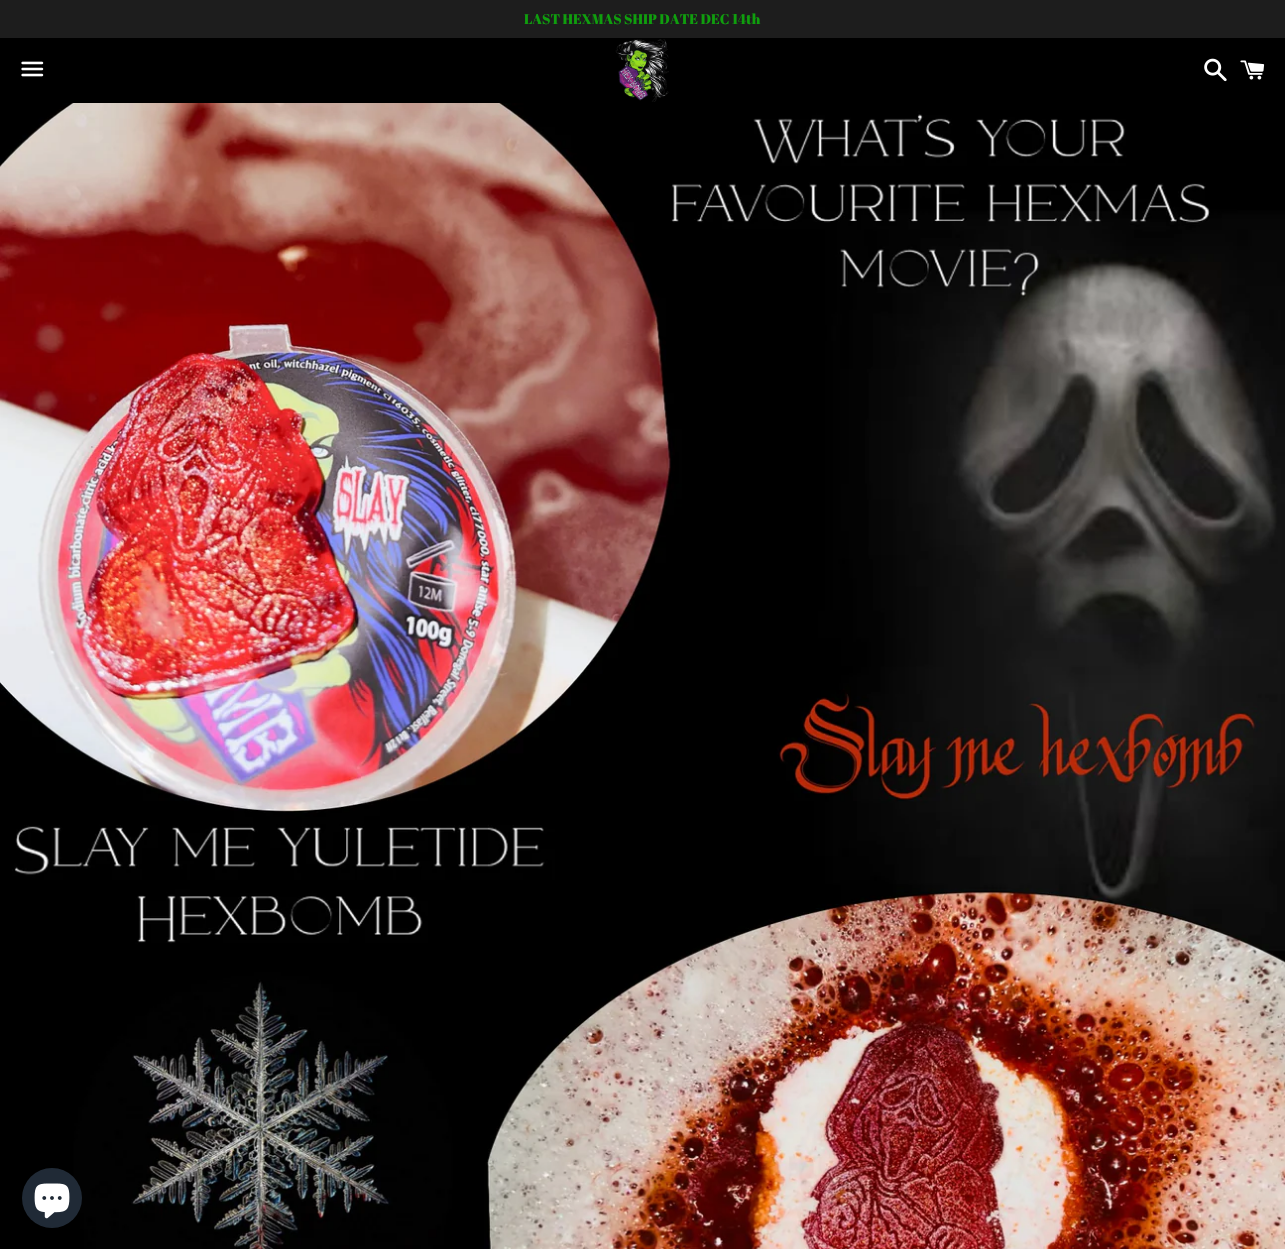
#include "include/core/SkBlurTypes.h"
#include "include/core/SkCanvas.h"
#include "include/core/SkData.h"
#include "include/core/SkFont.h"
#include "include/core/SkFontMgr.h"
#include "include/core/SkImage.h"
#include "include/core/SkMaskFilter.h"
#include "include/core/SkPaint.h"
#include "include/core/SkPathBuilder.h"
#include "include/core/SkTextBlob.h"
#include "include/effects/SkDashPathEffect.h"
#include "include/effects/SkGradientShader.h"
#include "include/utils/SkParsePath.h"

extern sk_sp<SkFontMgr> fontMgr;

static SkFont font(const char* family, int weight, float size, bool italic = false) {
    SkFontStyle style(weight, SkFontStyle::kNormal_Width,
        italic ? SkFontStyle::kItalic_Slant : SkFontStyle::kUpright_Slant);
    SkFont result(fontMgr->matchFamilyStyle(family, style), size);
    result.setSubpixel(true);
    return result;
}

static void drawLabel(SkCanvas* canvas, const char* s, float x, float y, const SkFont& font, SkColor color) {
    SkPaint ink(SkColor4f::FromColor(color));
    ink.setAntiAlias(true);
    canvas->drawString(s, x, y, font, ink);
}

static void fillRect(SkCanvas* canvas, float x, float y, float w, float h, SkColor color) {
    SkPaint ink(SkColor4f::FromColor(color));
    ink.setAntiAlias(true);
    canvas->drawRect(SkRect::MakeXYWH(x, y, w, h), ink);
}

static void drawPhoto(SkCanvas* canvas, const char* path, float x, float y, float w, float h) {
    auto image = SkImages::DeferredFromEncodedData(SkData::MakeFromFileName(path));
    canvas->drawImageRect(image, SkRect::MakeXYWH(x, y, w, h), SkSamplingOptions());
}

void draw(SkCanvas* canvas) {
    SkPaint paint;
    paint.setAntiAlias(true);
    canvas->clear(0xFF000000);
    fillRect(canvas, 0, 0, 1285, 38, 0xFF1D1D1D);
    SkFont font1 = font("Abril Fatface", 400, 14);
    drawLabel(canvas, "LAST HEXMAS SHIP DATE DEC 14th", 524, 24, font1, 0xFF0F9F0D);
    drawPhoto(canvas, "assets/img1.png", 21, 61, 23, 16);
    drawPhoto(canvas, "assets/img2.png", 615, 39, 54, 63);
    drawPhoto(canvas, "assets/img3.png", 1204, 58, 23, 24);
    drawPhoto(canvas, "assets/img4.png", 1240, 60, 25, 20);
    drawPhoto(canvas, "assets/img5.png", 0, 103, 1285, 1146);
    paint.setColor(0xFF202A36);
    canvas->drawCircle(52, 1198, 30, paint);
    drawPhoto(canvas, "assets/img6.png", 34, 1183, 36, 36);
}
